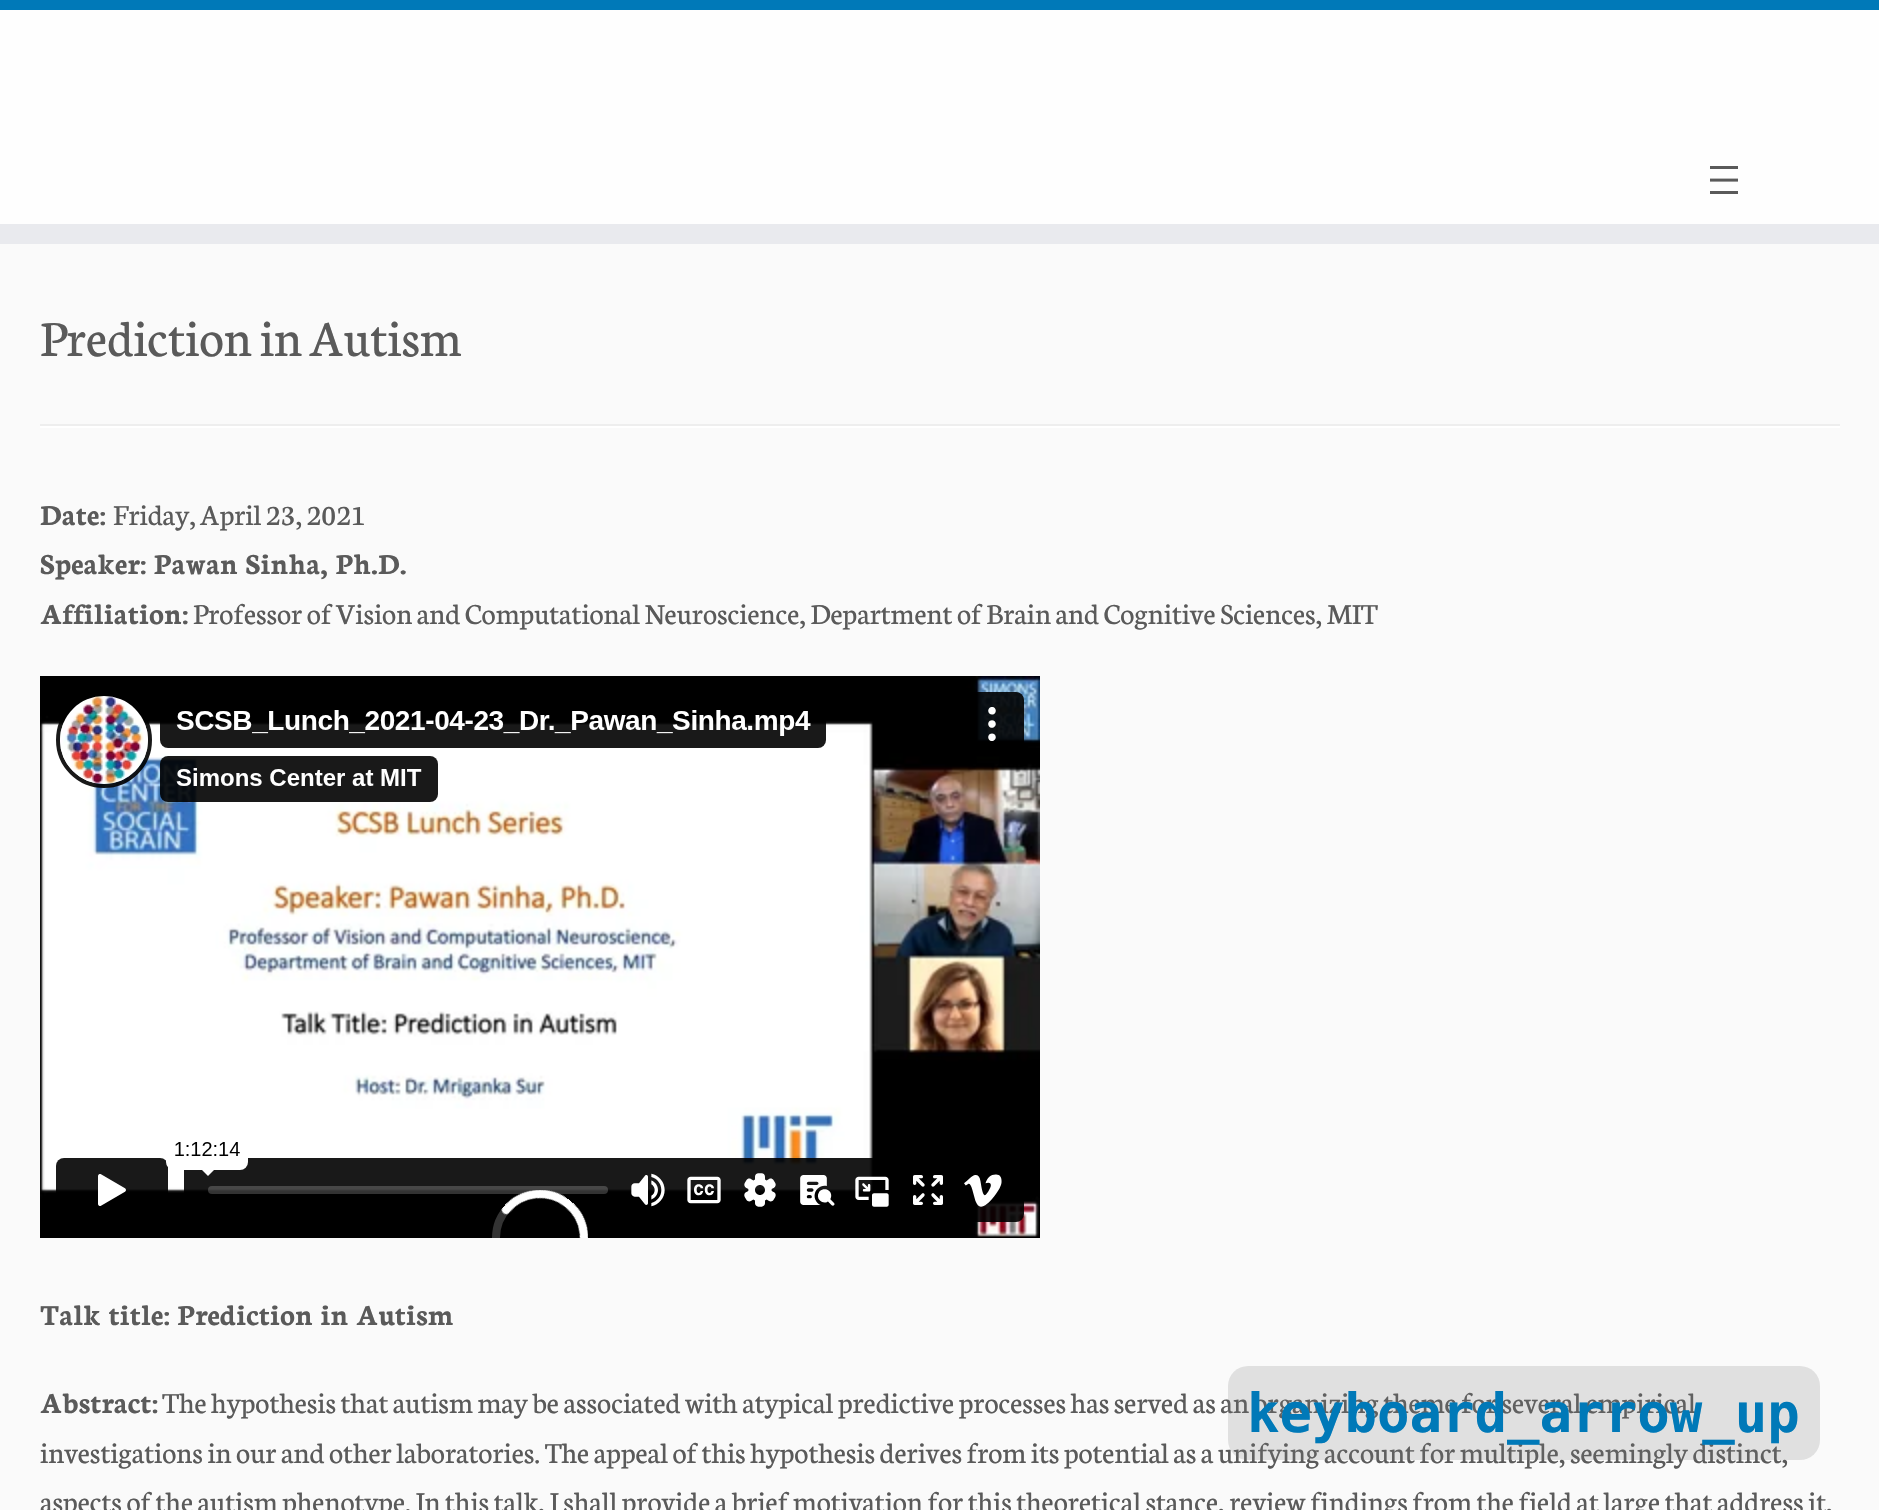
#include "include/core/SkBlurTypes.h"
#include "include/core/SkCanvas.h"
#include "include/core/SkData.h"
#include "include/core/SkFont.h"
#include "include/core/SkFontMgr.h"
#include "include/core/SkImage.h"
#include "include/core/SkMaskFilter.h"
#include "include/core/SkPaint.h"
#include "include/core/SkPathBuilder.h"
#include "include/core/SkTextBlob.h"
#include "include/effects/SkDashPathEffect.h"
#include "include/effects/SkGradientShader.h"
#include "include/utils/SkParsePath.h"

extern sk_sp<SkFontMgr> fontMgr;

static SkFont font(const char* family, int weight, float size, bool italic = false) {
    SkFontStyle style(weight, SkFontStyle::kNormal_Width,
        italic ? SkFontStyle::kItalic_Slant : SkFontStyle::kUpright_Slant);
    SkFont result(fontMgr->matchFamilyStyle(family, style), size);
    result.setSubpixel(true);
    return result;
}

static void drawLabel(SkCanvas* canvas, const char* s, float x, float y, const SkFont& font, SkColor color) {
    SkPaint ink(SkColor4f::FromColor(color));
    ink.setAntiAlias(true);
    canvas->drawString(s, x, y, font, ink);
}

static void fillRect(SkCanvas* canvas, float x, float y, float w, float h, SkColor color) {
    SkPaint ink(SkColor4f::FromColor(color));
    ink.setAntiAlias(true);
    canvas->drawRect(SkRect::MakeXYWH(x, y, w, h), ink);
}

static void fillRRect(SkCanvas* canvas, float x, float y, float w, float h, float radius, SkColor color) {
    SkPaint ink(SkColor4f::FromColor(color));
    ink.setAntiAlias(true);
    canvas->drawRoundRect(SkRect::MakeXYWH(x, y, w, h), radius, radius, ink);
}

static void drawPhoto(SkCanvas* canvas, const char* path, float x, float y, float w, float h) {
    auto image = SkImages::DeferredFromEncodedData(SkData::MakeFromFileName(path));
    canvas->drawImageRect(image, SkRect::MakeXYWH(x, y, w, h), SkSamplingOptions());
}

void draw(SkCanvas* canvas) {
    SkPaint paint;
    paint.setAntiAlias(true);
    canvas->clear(0xFFFAFAFA);
    fillRect(canvas, 0, 10, 1879, 214, 0xFFFEFEFE);
    fillRect(canvas, 0, 0, 1879, 10, 0xFF0079B8);
    fillRect(canvas, 0, 224, 1879, 20, 0xFFE9EAEE);
    drawPhoto(canvas, "assets/img1.png", 1710, 166, 28, 28);
    SkFont font1 = font("Neuton", 400, 54);
    drawLabel(canvas, "Prediction in Autism", 40, 356, font1, 0xFF5A5A5A);
    fillRect(canvas, 40, 424, 1800, 2, 0xFFEEEEEE);
    fillRect(canvas, 40, 426, 1800, 2, 0xFFFFFFFF);
    SkFont font2 = font("Neuton", 700, 30.9f);
    drawLabel(canvas, "Date:", 40, 525, font2, 0xFF5A5A5A);
    SkFont font3 = font("Neuton", 400, 30.9f);
    drawLabel(canvas, "Friday, April 23, 2021", 113, 525, font3, 0xFF5A5A5A);
    drawLabel(canvas, "Speaker: Pawan Sinha, Ph.D.", 40, 574, font2, 0xFF5A5A5A);
    drawLabel(canvas, "Affiliation:", 40, 624, font2, 0xFF5A5A5A);
    drawLabel(canvas, "Professor of Vision and Computational Neuroscience, Department of Brain and Cognitive Sciences, MIT", 193, 624, font3, 0xFF5A5A5A);
    drawPhoto(canvas, "assets/img2.png", 40, 676, 1000, 562);
    drawLabel(canvas, "Talk title: Prediction in Autism", 40, 1325, font2, 0xFF5A5A5A);
    drawLabel(canvas, "Abstract:", 40, 1413, font2, 0xFF5A5A5A);
    drawLabel(canvas, "The hypothesis that autism may be associated with atypical predictive processes has served as an organizing theme for several empirical", 162, 1413, font3, 0xFF5A5A5A);
    drawLabel(canvas, "investigations in our and other laboratories. The appeal of this hypothesis derives from its potential as a unifying account for multiple, seemingly distinct,", 40, 1463, font3, 0xFF5A5A5A);
    drawLabel(canvas, "aspects of the autism phenotype. In this talk, I shall provide a brief motivation for this theoretical stance, review findings from the field at large that address it,", 40, 1512, font3, 0xFF5A5A5A);
    fillRRect(canvas, 1228, 1366, 592, 94, 20, 0x33777777);
    SkFont font4 = font("DejaVu Sans Mono", 700, 54);
    drawLabel(canvas, "keyboard_arrow_up", 1247, 1432, font4, 0xFF0079B8);
}
